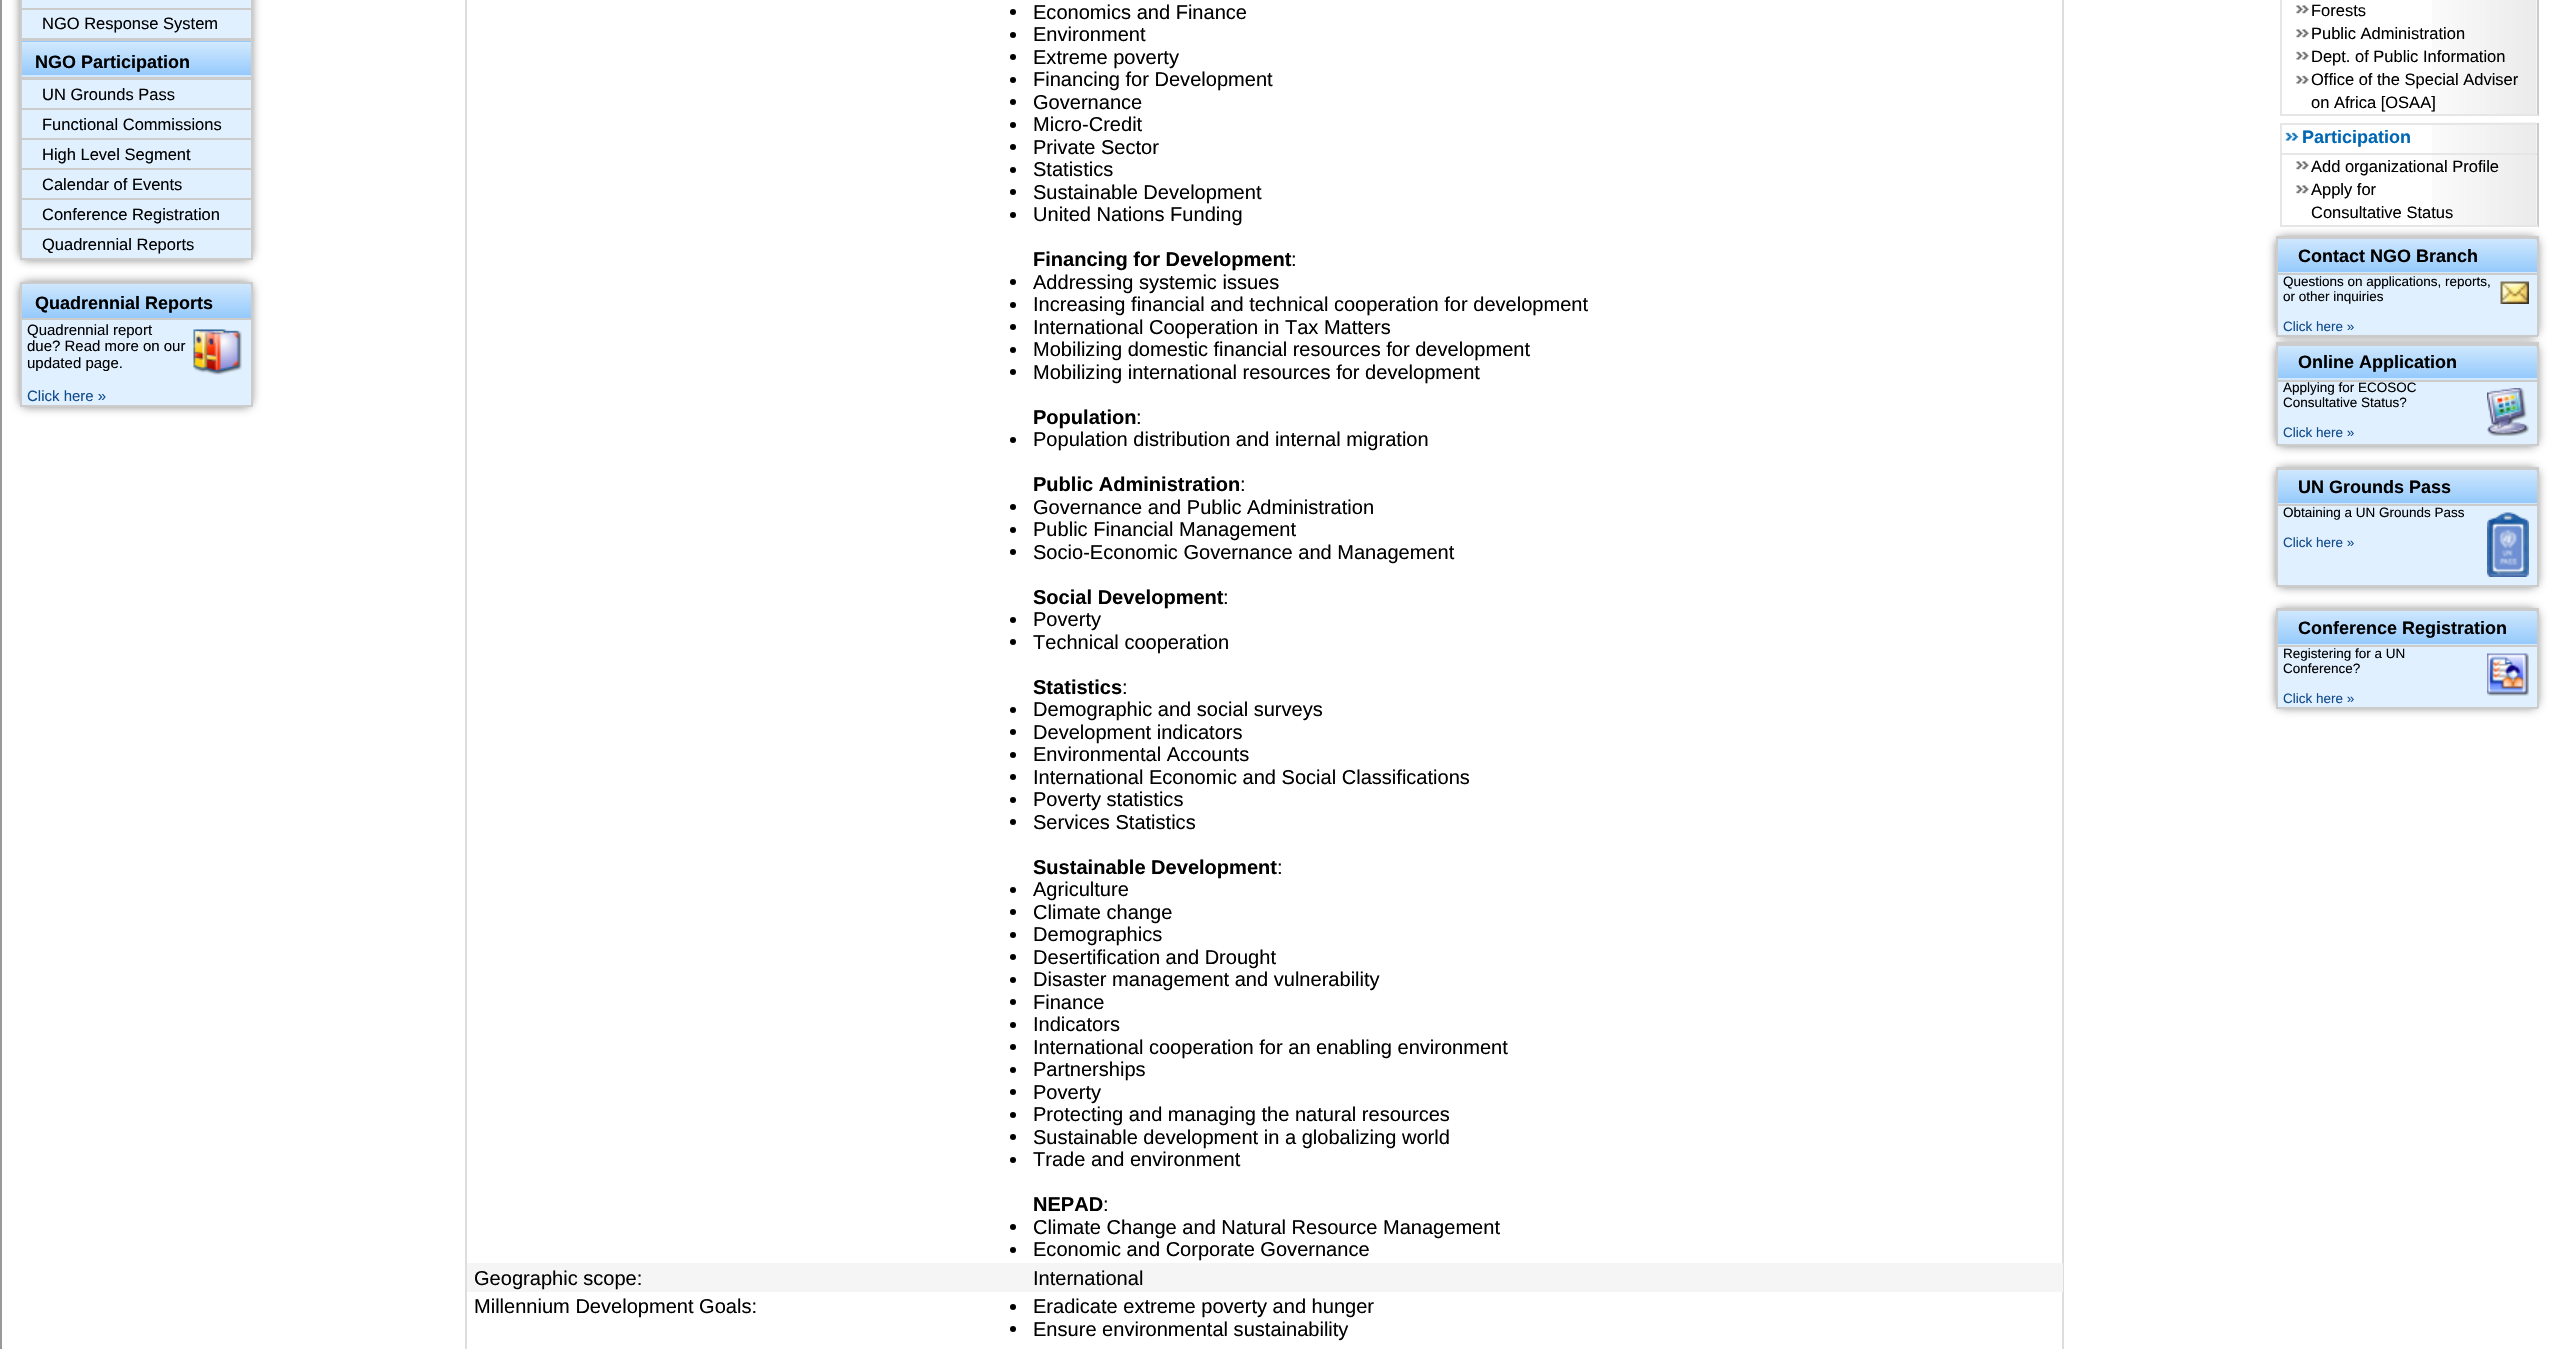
#include "include/core/SkBlurTypes.h"
#include "include/core/SkCanvas.h"
#include "include/core/SkData.h"
#include "include/core/SkFont.h"
#include "include/core/SkFontMgr.h"
#include "include/core/SkImage.h"
#include "include/core/SkMaskFilter.h"
#include "include/core/SkPaint.h"
#include "include/core/SkPathBuilder.h"
#include "include/core/SkTextBlob.h"
#include "include/effects/SkDashPathEffect.h"
#include "include/effects/SkGradientShader.h"
#include "include/utils/SkParsePath.h"

extern sk_sp<SkFontMgr> fontMgr;

static SkFont font(const char* family, int weight, float size, bool italic = false) {
    SkFontStyle style(weight, SkFontStyle::kNormal_Width,
        italic ? SkFontStyle::kItalic_Slant : SkFontStyle::kUpright_Slant);
    SkFont result(fontMgr->matchFamilyStyle(family, style), size);
    result.setSubpixel(true);
    return result;
}

static void drawLabel(SkCanvas* canvas, const char* s, float x, float y, const SkFont& font, SkColor color) {
    SkPaint ink(SkColor4f::FromColor(color));
    ink.setAntiAlias(true);
    canvas->drawString(s, x, y, font, ink);
}

static void fillRect(SkCanvas* canvas, float x, float y, float w, float h, SkColor color) {
    SkPaint ink(SkColor4f::FromColor(color));
    ink.setAntiAlias(true);
    canvas->drawRect(SkRect::MakeXYWH(x, y, w, h), ink);
}

static void drawPhoto(SkCanvas* canvas, const char* path, float x, float y, float w, float h) {
    auto image = SkImages::DeferredFromEncodedData(SkData::MakeFromFileName(path));
    canvas->drawImageRect(image, SkRect::MakeXYWH(x, y, w, h), SkSamplingOptions());
}

static SkPath parsePath(const char* data, bool evenOdd = false) {
    SkPath result = *SkParsePath::FromSVGString(data);
    if (evenOdd) result.setFillType(SkPathFillType::kEvenOdd);
    return result;
}

void draw(SkCanvas* canvas) {
    SkPaint paint;
    paint.setAntiAlias(true);
    canvas->clear(0xFFFFFFFF);
    fillRect(canvas, 0, 0, 2, 1349, 0xFF999999);
    paint.setColor(0xFF888888);
    paint.setMaskFilter(SkMaskFilter::MakeBlur(kNormal_SkBlurStyle, 5));
    canvas->drawRoundRect(SkRect::MakeXYWH(20, -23, 232, 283), 8, 8, paint);
    paint.setMaskFilter(nullptr);
    {
        const SkColor colors[] = {0xFFD2E9FE, 0xFF95CAFC};
        const float stops[] = {0, 1};
        const SkPoint ends[] = {{136, 9}, {136, 42}};
        paint.setShader(SkGradientShader::MakeLinear(ends, colors, stops, 2, SkTileMode::kClamp));
        paint.setAlpha(255);
    }
    canvas->drawRect(SkRect::MakeXYWH(20, 41, 232, 1), paint);
    {
        const SkColor colors[] = {0xFFD2E9FE, 0xFF95CAFC};
        const float stops[] = {0, 1};
        const SkPoint ends[] = {{136, 75}, {136, 108}};
        paint.setShader(SkGradientShader::MakeLinear(ends, colors, stops, 2, SkTileMode::kClamp));
        paint.setAlpha(255);
    }
    canvas->drawRect(SkRect::MakeXYWH(20, 75, 232, 2), paint);
    fillRect(canvas, 251, 0, 2, 260, 0xFFCCCCCC);
    fillRect(canvas, 20, 258, 232, 2, 0xFFCCCCCC);
    fillRect(canvas, 20, 0, 2, 260, 0xFFCCCCCC);
    fillRect(canvas, 22, 0, 229, 8, 0xFFE0F0FF);
    fillRect(canvas, 20, 8, 232, 2, 0xFFCCCCCC);
    fillRect(canvas, 22, 10, 229, 28, 0xFFE0F0FF);
    SkFont font1 = font("Liberation Sans", 400, 16.5f);
    drawLabel(canvas, "NGO Response System", 42, 29, font1, 0xFF000000);
    {
        const SkColor colors[] = {0xFFD2E9FE, 0xFF95CAFC};
        const float stops[] = {0, 1};
        const SkPoint ends[] = {{136, 42}, {136, 75}};
        paint.setShader(SkGradientShader::MakeLinear(ends, colors, stops, 2, SkTileMode::kClamp));
        paint.setAlpha(255);
    }
    canvas->drawRect(SkRect::MakeXYWH(22, 42, 229, 33), paint);
    fillRect(canvas, 18, 38, 236, 3, 0xFFCCCCCC);
    fillRect(canvas, 18, 77, 236, 3, 0xFFCCCCCC);
    SkFont font2 = font("Liberation Sans", 700, 18);
    drawLabel(canvas, "NGO Participation", 35, 68, font2, 0xFF000000);
    fillRect(canvas, 22, 80, 229, 28, 0xFFE0F0FF);
    drawLabel(canvas, "UN Grounds Pass", 42, 100, font1, 0xFF000000);
    fillRect(canvas, 20, 108, 232, 2, 0xFFCCCCCC);
    fillRect(canvas, 22, 110, 229, 28, 0xFFE0F0FF);
    drawLabel(canvas, "Functional Commissions", 42, 130, font1, 0xFF000000);
    fillRect(canvas, 20, 138, 232, 2, 0xFFCCCCCC);
    fillRect(canvas, 22, 140, 229, 28, 0xFFE0F0FF);
    drawLabel(canvas, "High Level Segment", 42, 160, font1, 0xFF000000);
    fillRect(canvas, 20, 168, 232, 2, 0xFFCCCCCC);
    fillRect(canvas, 22, 170, 229, 28, 0xFFE0F0FF);
    drawLabel(canvas, "Calendar of Events", 42, 190, font1, 0xFF000000);
    fillRect(canvas, 20, 198, 232, 2, 0xFFCCCCCC);
    fillRect(canvas, 22, 200, 229, 28, 0xFFE0F0FF);
    drawLabel(canvas, "Conference Registration", 42, 220, font1, 0xFF000000);
    fillRect(canvas, 20, 228, 232, 2, 0xFFCCCCCC);
    fillRect(canvas, 22, 230, 229, 28, 0xFFE0F0FF);
    drawLabel(canvas, "Quadrennial Reports", 42, 250, font1, 0xFF000000);
    paint.setShader(nullptr);
    paint.setColor(0xFF888888);
    paint.setMaskFilter(SkMaskFilter::MakeBlur(kNormal_SkBlurStyle, 5));
    canvas->drawRoundRect(SkRect::MakeXYWH(20, 282, 232, 125), 8, 8, paint);
    paint.setMaskFilter(nullptr);
    {
        const SkColor colors[] = {0xFFD2E9FE, 0xFF95CAFC};
        const float stops[] = {0, 1};
        const SkPoint ends[] = {{136, 282}, {136, 318}};
        paint.setShader(SkGradientShader::MakeLinear(ends, colors, stops, 2, SkTileMode::kClamp));
        paint.setAlpha(255);
    }
    canvas->drawPath(parsePath("M28 282H244C248.5 282 252 285.5 252 290V318H20V290C20 285.5 23.5 282 28 282Z"), paint);
    fillRect(canvas, 20, 282, 232, 2, 0xFFCCCCCC);
    fillRect(canvas, 251, 282, 2, 125, 0xFFCCCCCC);
    fillRect(canvas, 20, 405, 232, 2, 0xFFCCCCCC);
    fillRect(canvas, 20, 282, 2, 125, 0xFFCCCCCC);
    drawLabel(canvas, "Quadrennial Reports", 35, 309, font2, 0xFF000000);
    fillRect(canvas, 20, 318, 232, 2, 0xFFCCCCCC);
    fillRect(canvas, 22, 320, 229, 85, 0xFFE0F0FF);
    SkFont font3 = font("Liberation Sans", 400, 15);
    drawLabel(canvas, "Quadrennial report", 27, 335, font3, 0xFF000000);
    drawPhoto(canvas, "assets/img1.png", 193, 329, 49, 46);
    drawLabel(canvas, "due? Read more on our", 27, 351, font3, 0xFF000000);
    drawLabel(canvas, "updated page.", 27, 368, font3, 0xFF000000);
    drawLabel(canvas, "Click here »", 27, 401, font3, 0xFF124C8D);
    paint.setStroke(true);
    paint.setStrokeWidth(2);
    paint.setShader(nullptr);
    paint.setColor(0xFFDDDDDD);
    canvas->drawRect(SkRect::MakeXYWH(466, -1, 1597, 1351), paint);
    paint.setStroke(false);
    paint.setColor(0xFF000000);
    canvas->drawCircle(1013, 12, 3, paint);
    SkFont font4 = font("Liberation Sans", 400, 20.05f);
    drawLabel(canvas, "Economics and Finance", 1033, 19, font4, 0xFF000000);
    canvas->drawCircle(1013, 35, 3, paint);
    drawLabel(canvas, "Environment", 1033, 41, font4, 0xFF000000);
    canvas->drawCircle(1013, 57, 3, paint);
    drawLabel(canvas, "Extreme poverty", 1033, 64, font4, 0xFF000000);
    canvas->drawCircle(1013, 80, 3, paint);
    drawLabel(canvas, "Financing for Development", 1033, 86, font4, 0xFF000000);
    canvas->drawCircle(1013, 102, 3, paint);
    drawLabel(canvas, "Governance", 1033, 109, font4, 0xFF000000);
    canvas->drawCircle(1013, 125, 3, paint);
    drawLabel(canvas, "Micro-Credit", 1033, 131, font4, 0xFF000000);
    canvas->drawCircle(1013, 147, 3, paint);
    drawLabel(canvas, "Private Sector", 1033, 154, font4, 0xFF000000);
    canvas->drawCircle(1013, 170, 3, paint);
    drawLabel(canvas, "Statistics", 1033, 176, font4, 0xFF000000);
    canvas->drawCircle(1013, 192, 3, paint);
    drawLabel(canvas, "Sustainable Development", 1033, 199, font4, 0xFF000000);
    canvas->drawCircle(1013, 215, 3, paint);
    drawLabel(canvas, "United Nations Funding", 1033, 221, font4, 0xFF000000);
    SkFont font5 = font("Liberation Sans", 700, 20.05f);
    drawLabel(canvas, "Financing for Development", 1033, 266, font5, 0xFF000000);
    drawLabel(canvas, ":", 1291, 266, font4, 0xFF000000);
    canvas->drawCircle(1013, 282, 3, paint);
    drawLabel(canvas, "Addressing systemic issues", 1033, 289, font4, 0xFF000000);
    canvas->drawCircle(1013, 305, 3, paint);
    drawLabel(canvas, "Increasing financial and technical cooperation for development", 1033, 311, font4, 0xFF000000);
    canvas->drawCircle(1013, 327, 3, paint);
    drawLabel(canvas, "International Cooperation in Tax Matters", 1033, 334, font4, 0xFF000000);
    canvas->drawCircle(1013, 350, 3, paint);
    drawLabel(canvas, "Mobilizing domestic financial resources for development", 1033, 356, font4, 0xFF000000);
    canvas->drawCircle(1013, 372, 3, paint);
    drawLabel(canvas, "Mobilizing international resources for development", 1033, 379, font4, 0xFF000000);
    drawLabel(canvas, "Population", 1033, 424, font5, 0xFF000000);
    drawLabel(canvas, ":", 1136, 424, font4, 0xFF000000);
    canvas->drawCircle(1013, 440, 3, paint);
    drawLabel(canvas, "Population distribution and internal migration", 1033, 446, font4, 0xFF000000);
    drawLabel(canvas, "Public Administration", 1033, 491, font5, 0xFF000000);
    drawLabel(canvas, ":", 1240, 491, font4, 0xFF000000);
    canvas->drawCircle(1013, 507, 3, paint);
    drawLabel(canvas, "Governance and Public Administration", 1033, 514, font4, 0xFF000000);
    canvas->drawCircle(1013, 530, 3, paint);
    drawLabel(canvas, "Public Financial Management", 1033, 536, font4, 0xFF000000);
    canvas->drawCircle(1013, 552, 3, paint);
    drawLabel(canvas, "Socio-Economic Governance and Management", 1033, 559, font4, 0xFF000000);
    drawLabel(canvas, "Social Development", 1033, 604, font5, 0xFF000000);
    drawLabel(canvas, ":", 1223, 604, font4, 0xFF000000);
    canvas->drawCircle(1013, 620, 3, paint);
    drawLabel(canvas, "Poverty", 1033, 626, font4, 0xFF000000);
    canvas->drawCircle(1013, 642, 3, paint);
    drawLabel(canvas, "Technical cooperation", 1033, 649, font4, 0xFF000000);
    drawLabel(canvas, "Statistics", 1033, 694, font5, 0xFF000000);
    drawLabel(canvas, ":", 1122, 694, font4, 0xFF000000);
    canvas->drawCircle(1013, 710, 3, paint);
    drawLabel(canvas, "Demographic and social surveys", 1033, 716, font4, 0xFF000000);
    canvas->drawCircle(1013, 732, 3, paint);
    drawLabel(canvas, "Development indicators", 1033, 739, font4, 0xFF000000);
    canvas->drawCircle(1013, 755, 3, paint);
    drawLabel(canvas, "Environmental Accounts", 1033, 761, font4, 0xFF000000);
    canvas->drawCircle(1013, 777, 3, paint);
    drawLabel(canvas, "International Economic and Social Classifications", 1033, 784, font4, 0xFF000000);
    canvas->drawCircle(1013, 800, 3, paint);
    drawLabel(canvas, "Poverty statistics", 1033, 806, font4, 0xFF000000);
    canvas->drawCircle(1013, 822, 3, paint);
    drawLabel(canvas, "Services Statistics", 1033, 829, font4, 0xFF000000);
    drawLabel(canvas, "Sustainable Development", 1033, 874, font5, 0xFF000000);
    drawLabel(canvas, ":", 1277, 874, font4, 0xFF000000);
    canvas->drawCircle(1013, 890, 3, paint);
    drawLabel(canvas, "Agriculture", 1033, 896, font4, 0xFF000000);
    canvas->drawCircle(1013, 912, 3, paint);
    drawLabel(canvas, "Climate change", 1033, 919, font4, 0xFF000000);
    canvas->drawCircle(1013, 935, 3, paint);
    drawLabel(canvas, "Demographics", 1033, 941, font4, 0xFF000000);
    canvas->drawCircle(1013, 957, 3, paint);
    drawLabel(canvas, "Desertification and Drought", 1033, 964, font4, 0xFF000000);
    canvas->drawCircle(1013, 980, 3, paint);
    drawLabel(canvas, "Disaster management and vulnerability", 1033, 986, font4, 0xFF000000);
    canvas->drawCircle(1013, 1002, 3, paint);
    drawLabel(canvas, "Finance", 1033, 1009, font4, 0xFF000000);
    canvas->drawCircle(1013, 1025, 3, paint);
    drawLabel(canvas, "Indicators", 1033, 1031, font4, 0xFF000000);
    canvas->drawCircle(1013, 1047, 3, paint);
    drawLabel(canvas, "International cooperation for an enabling environment", 1033, 1054, font4, 0xFF000000);
    canvas->drawCircle(1013, 1070, 3, paint);
    drawLabel(canvas, "Partnerships", 1033, 1076, font4, 0xFF000000);
    canvas->drawCircle(1013, 1092, 3, paint);
    drawLabel(canvas, "Poverty", 1033, 1099, font4, 0xFF000000);
    canvas->drawCircle(1013, 1115, 3, paint);
    drawLabel(canvas, "Protecting and managing the natural resources", 1033, 1121, font4, 0xFF000000);
    canvas->drawCircle(1013, 1137, 3, paint);
    drawLabel(canvas, "Sustainable development in a globalizing world", 1033, 1144, font4, 0xFF000000);
    canvas->drawCircle(1013, 1160, 3, paint);
    drawLabel(canvas, "Trade and environment", 1033, 1166, font4, 0xFF000000);
    drawLabel(canvas, "NEPAD", 1033, 1211, font5, 0xFF000000);
    drawLabel(canvas, ":", 1103, 1211, font4, 0xFF000000);
    canvas->drawCircle(1013, 1227, 3, paint);
    drawLabel(canvas, "Climate Change and Natural Resource Management", 1033, 1234, font4, 0xFF000000);
    canvas->drawCircle(1013, 1250, 3, paint);
    drawLabel(canvas, "Economic and Corporate Governance", 1033, 1256, font4, 0xFF000000);
    fillRect(canvas, 467, 1263, 1596, 29, 0xFFF5F5F5);
    drawLabel(canvas, "Geographic scope:", 474, 1285, font4, 0xFF000000);
    drawLabel(canvas, "International", 1033, 1285, font4, 0xFF000000);
    drawLabel(canvas, "Millennium Development Goals:", 474, 1313, font4, 0xFF000000);
    canvas->drawCircle(1013, 1307, 3, paint);
    drawLabel(canvas, "Eradicate extreme poverty and hunger", 1033, 1313, font4, 0xFF000000);
    canvas->drawCircle(1013, 1329, 3, paint);
    drawLabel(canvas, "Ensure environmental sustainability", 1033, 1336, font4, 0xFF000000);
    drawPhoto(canvas, "assets/img2.png", 2432, 0, 105, 114);
    fillRect(canvas, 2537, 0, 2, 116, 0xFFCCCCCC);
    fillRect(canvas, 2280, 114, 258, 2, 0xFFE6E6E6);
    fillRect(canvas, 2280, 0, 2, 116, 0xFFE6E6E6);
    drawPhoto(canvas, "assets/img3.png", 2296, 5, 13, 9);
    drawLabel(canvas, "Forests", 2311, 16, font1, 0xFF000000);
    drawPhoto(canvas, "assets/img3.png", 2296, 29, 13, 9);
    drawLabel(canvas, "Public Administration", 2311, 39, font1, 0xFF000000);
    drawPhoto(canvas, "assets/img4.png", 2296, 51, 13, 9);
    drawLabel(canvas, "Dept. of Public Information", 2311, 62, font1, 0xFF000000);
    drawPhoto(canvas, "assets/img4.png", 2296, 75, 13, 9);
    drawLabel(canvas, "Office of the Special Adviser", 2311, 85, font1, 0xFF000000);
    drawLabel(canvas, "on Africa [OSAA]", 2311, 108, font1, 0xFF000000);
    paint.setColor(0xFF888888);
    paint.setMaskFilter(SkMaskFilter::MakeBlur(kNormal_SkBlurStyle, 5));
    canvas->drawRoundRect(SkRect::MakeXYWH(2276, 237, 262, 99), 8, 8, paint);
    paint.setMaskFilter(nullptr);
    drawPhoto(canvas, "assets/img5.png", 2432, 122, 105, 103);
    fillRect(canvas, 2537, 123, 2, 104, 0xFFCCCCCC);
    fillRect(canvas, 2280, 225, 258, 2, 0xFFE6E6E6);
    fillRect(canvas, 2280, 123, 2, 104, 0xFFE6E6E6);
    fillRect(canvas, 2282, 123, 255, 2, 0xFFE6E6E6);
    fillRect(canvas, 2282, 153, 255, 2, 0xFFE6E6E6);
    drawPhoto(canvas, "assets/img6.png", 2285, 132, 14, 9);
    drawLabel(canvas, "Participation", 2302, 143, font2, 0xFF0067B4);
    drawPhoto(canvas, "assets/img3.png", 2296, 161, 13, 9);
    drawLabel(canvas, "Add organizational Profile", 2311, 172, font1, 0xFF000000);
    drawPhoto(canvas, "assets/img3.png", 2296, 185, 13, 9);
    drawLabel(canvas, "Apply for", 2311, 195, font1, 0xFF000000);
    drawLabel(canvas, "Consultative Status", 2311, 218, font1, 0xFF000000);
    {
        const SkColor colors[] = {0xFFD2E9FE, 0xFF95CAFC};
        const float stops[] = {0, 1};
        const SkPoint ends[] = {{2407, 237}, {2407, 272}};
        paint.setShader(SkGradientShader::MakeLinear(ends, colors, stops, 2, SkTileMode::kClamp));
        paint.setAlpha(255);
    }
    canvas->drawPath(parsePath("M2284 237H2530C2534.5 237 2538 240.5 2538 245V272H2276V245C2276 240.5 2279.5 237 2284 237Z"), paint);
    fillRect(canvas, 2276, 238, 262, 1, 0xFFCCCCCC);
    fillRect(canvas, 2537, 275, 2, 61, 0xFFCCCCCC);
    fillRect(canvas, 2276, 335, 262, 2, 0xFFCCCCCC);
    {
        const SkColor colors[] = {0xFFD2E9FE, 0xFF95CAFC};
        const float stops[] = {0, 1};
        const SkPoint ends[] = {{2407, 272}, {2407, 306}};
        paint.setShader(SkGradientShader::MakeLinear(ends, colors, stops, 2, SkTileMode::kClamp));
        paint.setAlpha(255);
    }
    canvas->drawRect(SkRect::MakeXYWH(2276, 272, 262, 1), paint);
    fillRect(canvas, 2276, 237, 2, 99, 0xFFCCCCCC);
    fillRect(canvas, 2276, 236, 262, 2, 0xFFCCCCCC);
    fillRect(canvas, 2276, 273, 262, 2, 0xFFCCCCCC);
    fillRect(canvas, 2537, 236, 2, 39, 0xFFCCCCCC);
    drawLabel(canvas, "Contact NGO Branch", 2298, 262, font2, 0xFF000000);
    fillRect(canvas, 2278, 275, 259, 60, 0xFFE0F0FF);
    SkFont font6 = font("Liberation Sans", 400, 13.5f);
    drawLabel(canvas, "Questions on applications, reports,", 2283, 286, font6, 0xFF000000);
    drawPhoto(canvas, "assets/img7.png", 2500, 281, 29, 23);
    drawLabel(canvas, "or other inquiries", 2283, 301, font6, 0xFF000000);
    paint.setShader(nullptr);
    paint.setColor(0xFF888888);
    paint.setMaskFilter(SkMaskFilter::MakeBlur(kNormal_SkBlurStyle, 5));
    canvas->drawRoundRect(SkRect::MakeXYWH(2276, 344, 262, 102), 8, 8, paint);
    paint.setMaskFilter(nullptr);
    drawLabel(canvas, "Click here »", 2283, 331, font6, 0xFF124C8D);
    {
        const SkColor colors[] = {0xFFD2E9FE, 0xFF95CAFC};
        const float stops[] = {0, 1};
        const SkPoint ends[] = {{2407, 344}, {2407, 378}};
        paint.setShader(SkGradientShader::MakeLinear(ends, colors, stops, 2, SkTileMode::kClamp));
        paint.setAlpha(255);
    }
    canvas->drawPath(parsePath("M2284 344H2530C2534.5 344 2538 347.5 2538 352V378H2276V352C2276 347.5 2279.5 344 2284 344Z"), paint);
    fillRect(canvas, 2276, 342, 262, 4, 0xFFCCCCCC);
    fillRect(canvas, 2537, 381, 2, 65, 0xFFCCCCCC);
    fillRect(canvas, 2276, 444, 262, 2, 0xFFCCCCCC);
    {
        const SkColor colors[] = {0xFFD2E9FE, 0xFF95CAFC};
        const float stops[] = {0, 1};
        const SkPoint ends[] = {{2407, 378}, {2407, 413}};
        paint.setShader(SkGradientShader::MakeLinear(ends, colors, stops, 2, SkTileMode::kClamp));
        paint.setAlpha(255);
    }
    canvas->drawRect(SkRect::MakeXYWH(2276, 378, 262, 2), paint);
    fillRect(canvas, 2276, 344, 2, 102, 0xFFCCCCCC);
    fillRect(canvas, 2276, 380, 262, 2, 0xFFCCCCCC);
    fillRect(canvas, 2537, 342, 2, 39, 0xFFCCCCCC);
    drawLabel(canvas, "Online Application", 2298, 368, font2, 0xFF000000);
    fillRect(canvas, 2278, 382, 259, 62, 0xFFE0F0FF);
    drawLabel(canvas, "Applying for ECOSOC", 2283, 392, font6, 0xFF000000);
    drawPhoto(canvas, "assets/img8.png", 2487, 388, 42, 48);
    drawLabel(canvas, "Consultative Status?", 2283, 407, font6, 0xFF000000);
    drawLabel(canvas, "Click here »", 2283, 437, font6, 0xFF124C8D);
    paint.setShader(nullptr);
    paint.setColor(0xFF888888);
    paint.setMaskFilter(SkMaskFilter::MakeBlur(kNormal_SkBlurStyle, 5));
    canvas->drawRoundRect(SkRect::MakeXYWH(2276, 468, 262, 119), 8, 8, paint);
    paint.setMaskFilter(nullptr);
    {
        const SkColor colors[] = {0xFFD2E9FE, 0xFF95CAFC};
        const float stops[] = {0, 1};
        const SkPoint ends[] = {{2407, 468}, {2407, 503}};
        paint.setShader(SkGradientShader::MakeLinear(ends, colors, stops, 2, SkTileMode::kClamp));
        paint.setAlpha(255);
    }
    canvas->drawPath(parsePath("M2284 468H2530C2534.5 468 2538 471.5 2538 476V503H2276V476C2276 471.5 2279.5 468 2284 468Z"), paint);
    fillRect(canvas, 2276, 469, 262, 1, 0xFFCCCCCC);
    fillRect(canvas, 2537, 506, 2, 81, 0xFFCCCCCC);
    fillRect(canvas, 2276, 585, 262, 2, 0xFFCCCCCC);
    {
        const SkColor colors[] = {0xFFD2E9FE, 0xFF95CAFC};
        const float stops[] = {0, 1};
        const SkPoint ends[] = {{2407, 503}, {2407, 537}};
        paint.setShader(SkGradientShader::MakeLinear(ends, colors, stops, 2, SkTileMode::kClamp));
        paint.setAlpha(255);
    }
    canvas->drawRect(SkRect::MakeXYWH(2276, 503, 262, 1), paint);
    fillRect(canvas, 2276, 468, 2, 119, 0xFFCCCCCC);
    fillRect(canvas, 2276, 467, 262, 2, 0xFFCCCCCC);
    fillRect(canvas, 2276, 504, 262, 2, 0xFFCCCCCC);
    fillRect(canvas, 2537, 467, 2, 39, 0xFFCCCCCC);
    drawLabel(canvas, "UN Grounds Pass", 2298, 493, font2, 0xFF000000);
    fillRect(canvas, 2278, 506, 259, 79, 0xFFE0F0FF);
    drawLabel(canvas, "Obtaining a UN Grounds Pass", 2283, 517, font6, 0xFF000000);
    drawPhoto(canvas, "assets/img9.png", 2487, 512, 42, 65);
    drawLabel(canvas, "Click here »", 2283, 547, font6, 0xFF124C8D);
    paint.setShader(nullptr);
    paint.setColor(0xFF888888);
    paint.setMaskFilter(SkMaskFilter::MakeBlur(kNormal_SkBlurStyle, 5));
    canvas->drawRoundRect(SkRect::MakeXYWH(2276, 609, 262, 99), 8, 8, paint);
    paint.setMaskFilter(nullptr);
    {
        const SkColor colors[] = {0xFFD2E9FE, 0xFF95CAFC};
        const float stops[] = {0, 1};
        const SkPoint ends[] = {{2407, 609}, {2407, 644}};
        paint.setShader(SkGradientShader::MakeLinear(ends, colors, stops, 2, SkTileMode::kClamp));
        paint.setAlpha(255);
    }
    canvas->drawPath(parsePath("M2284 609H2530C2534.5 609 2538 612.5 2538 617V644H2276V617C2276 612.5 2279.5 609 2284 609Z"), paint);
    fillRect(canvas, 2276, 610, 262, 1, 0xFFCCCCCC);
    fillRect(canvas, 2537, 647, 2, 61, 0xFFCCCCCC);
    fillRect(canvas, 2276, 707, 262, 2, 0xFFCCCCCC);
    {
        const SkColor colors[] = {0xFFD2E9FE, 0xFF95CAFC};
        const float stops[] = {0, 1};
        const SkPoint ends[] = {{2407, 644}, {2407, 678}};
        paint.setShader(SkGradientShader::MakeLinear(ends, colors, stops, 2, SkTileMode::kClamp));
        paint.setAlpha(255);
    }
    canvas->drawRect(SkRect::MakeXYWH(2276, 644, 262, 1), paint);
    fillRect(canvas, 2276, 609, 2, 99, 0xFFCCCCCC);
    fillRect(canvas, 2276, 608, 262, 2, 0xFFCCCCCC);
    fillRect(canvas, 2276, 645, 262, 2, 0xFFCCCCCC);
    fillRect(canvas, 2537, 608, 2, 39, 0xFFCCCCCC);
    drawLabel(canvas, "Conference Registration", 2298, 634, font2, 0xFF000000);
    fillRect(canvas, 2278, 647, 259, 60, 0xFFE0F0FF);
    drawLabel(canvas, "Registering for a UN", 2283, 658, font6, 0xFF000000);
    drawPhoto(canvas, "assets/img10.png", 2487, 653, 42, 43);
    drawLabel(canvas, "Conference?", 2283, 673, font6, 0xFF000000);
    drawLabel(canvas, "Click here »", 2283, 703, font6, 0xFF124C8D);
}
